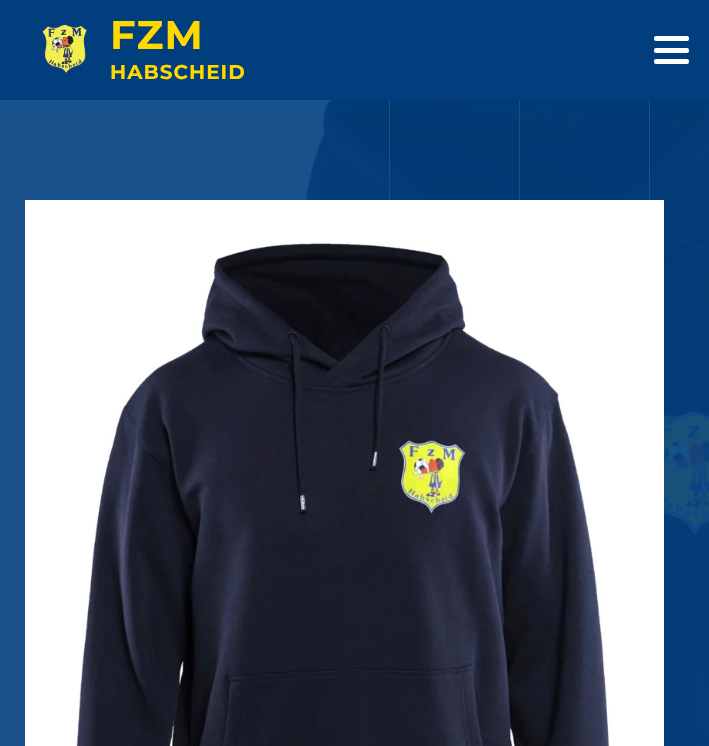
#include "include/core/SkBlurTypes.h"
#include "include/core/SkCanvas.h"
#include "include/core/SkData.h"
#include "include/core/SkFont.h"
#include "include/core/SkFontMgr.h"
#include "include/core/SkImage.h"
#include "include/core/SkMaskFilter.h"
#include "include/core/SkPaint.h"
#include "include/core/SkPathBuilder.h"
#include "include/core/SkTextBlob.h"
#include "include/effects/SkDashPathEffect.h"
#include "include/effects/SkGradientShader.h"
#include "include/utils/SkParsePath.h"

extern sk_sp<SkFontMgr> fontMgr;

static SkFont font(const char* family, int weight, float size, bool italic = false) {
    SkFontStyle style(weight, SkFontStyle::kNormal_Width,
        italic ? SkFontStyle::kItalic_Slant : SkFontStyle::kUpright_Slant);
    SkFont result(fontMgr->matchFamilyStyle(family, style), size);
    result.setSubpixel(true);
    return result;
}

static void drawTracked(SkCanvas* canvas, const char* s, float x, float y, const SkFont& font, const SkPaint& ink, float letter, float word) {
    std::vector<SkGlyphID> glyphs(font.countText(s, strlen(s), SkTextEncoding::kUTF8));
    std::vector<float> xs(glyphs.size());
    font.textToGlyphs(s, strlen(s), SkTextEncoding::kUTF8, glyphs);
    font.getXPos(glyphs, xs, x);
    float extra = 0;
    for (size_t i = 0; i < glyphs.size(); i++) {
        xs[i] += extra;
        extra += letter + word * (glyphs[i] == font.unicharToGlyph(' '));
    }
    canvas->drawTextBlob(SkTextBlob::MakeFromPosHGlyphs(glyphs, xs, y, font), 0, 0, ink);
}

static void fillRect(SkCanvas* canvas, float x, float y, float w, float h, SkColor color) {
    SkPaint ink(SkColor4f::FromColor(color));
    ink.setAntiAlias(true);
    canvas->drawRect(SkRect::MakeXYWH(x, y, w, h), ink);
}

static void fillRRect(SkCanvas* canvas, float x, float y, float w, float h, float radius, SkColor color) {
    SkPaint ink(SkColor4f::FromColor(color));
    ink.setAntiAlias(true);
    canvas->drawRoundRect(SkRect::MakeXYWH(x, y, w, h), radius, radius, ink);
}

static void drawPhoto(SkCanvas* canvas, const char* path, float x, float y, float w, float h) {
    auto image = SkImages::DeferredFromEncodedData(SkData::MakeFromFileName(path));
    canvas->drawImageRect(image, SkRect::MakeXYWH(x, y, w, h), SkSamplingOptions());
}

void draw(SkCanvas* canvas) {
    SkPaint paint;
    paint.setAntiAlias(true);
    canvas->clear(0xFFFFFFFF);
    fillRect(canvas, 0, 0, 709, 100, 0xFF003E7E);
    drawPhoto(canvas, "assets/img1.png", 40, 23, 48, 53);
    SkFont font1 = font("Montserrat", 700, 40);
    paint.setColor(0xFFFFD800);
    drawTracked(canvas, "FZM", 110, 49, font1, paint, 1, 0);
    SkFont font2 = font("Montserrat", 700, 20);
    drawTracked(canvas, "HABSCHEID", 110, 79, font2, paint, 1, 0);
    fillRRect(canvas, 654, 36, 35, 5, 2, 0xFFFFFFFF);
    fillRRect(canvas, 654, 48, 35, 5, 2, 0xFFFFFFFF);
    fillRRect(canvas, 654, 59, 35, 5, 2, 0xFFFFFFFF);
    drawPhoto(canvas, "assets/img2.png", 100, 100, 609, 646);
    drawPhoto(canvas, "assets/img3.png", 0, 100, 709, 646);
    drawPhoto(canvas, "assets/img4.png", 25, 200, 639, 546);
}
